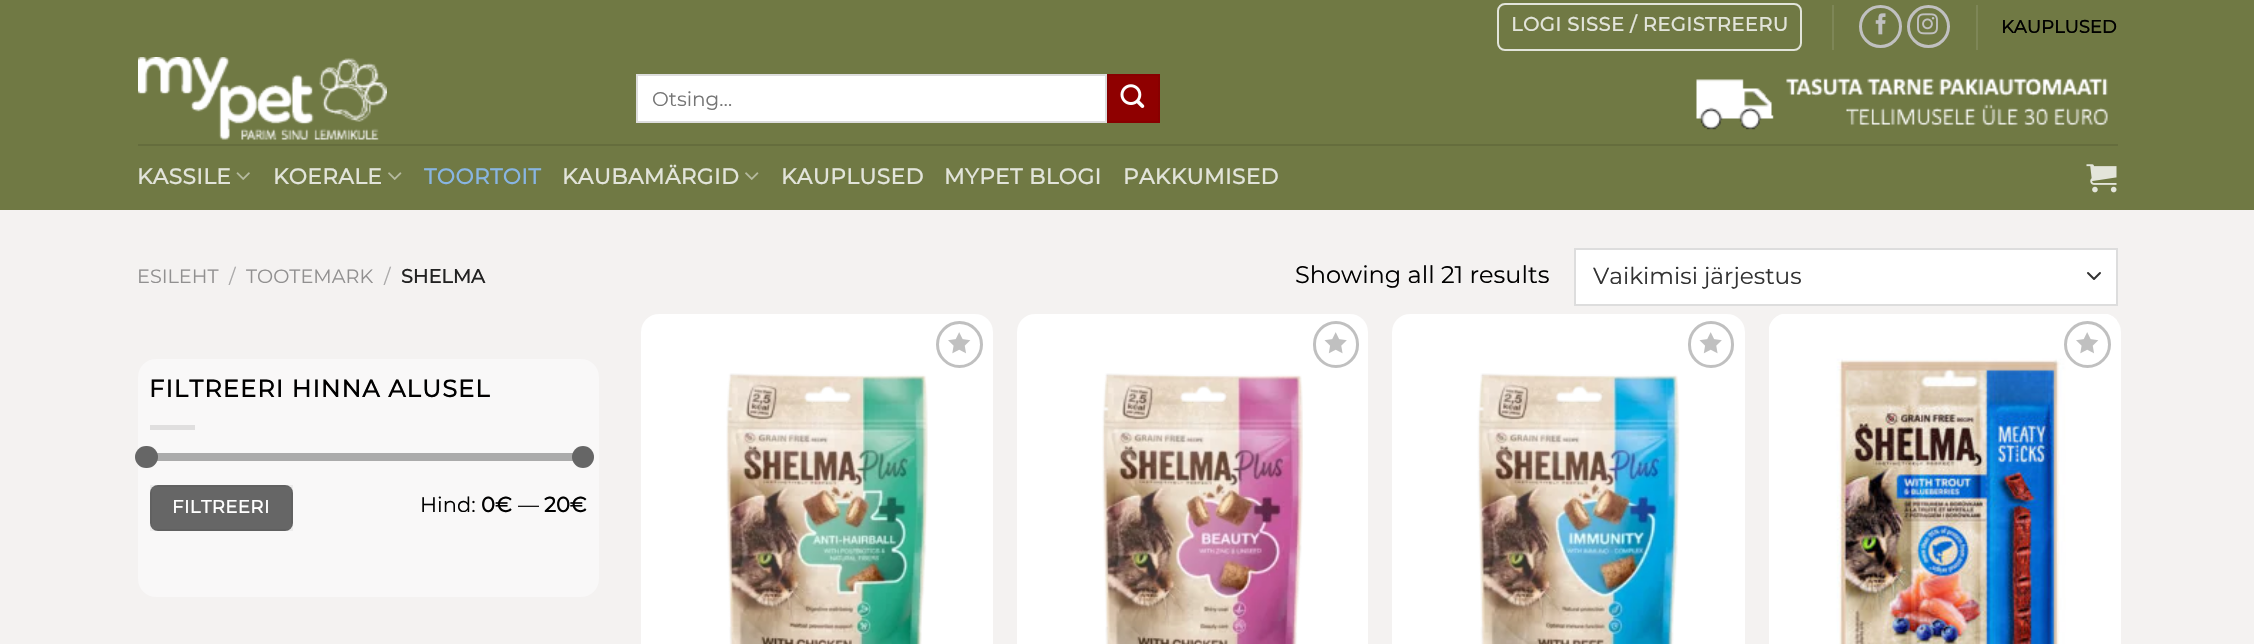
#include "include/core/SkBlurTypes.h"
#include "include/core/SkCanvas.h"
#include "include/core/SkData.h"
#include "include/core/SkFont.h"
#include "include/core/SkFontMgr.h"
#include "include/core/SkImage.h"
#include "include/core/SkMaskFilter.h"
#include "include/core/SkPaint.h"
#include "include/core/SkPathBuilder.h"
#include "include/core/SkTextBlob.h"
#include "include/effects/SkDashPathEffect.h"
#include "include/effects/SkGradientShader.h"
#include "include/utils/SkParsePath.h"

extern sk_sp<SkFontMgr> fontMgr;

static SkFont font(const char* family, int weight, float size, bool italic = false) {
    SkFontStyle style(weight, SkFontStyle::kNormal_Width,
        italic ? SkFontStyle::kItalic_Slant : SkFontStyle::kUpright_Slant);
    SkFont result(fontMgr->matchFamilyStyle(family, style), size);
    result.setSubpixel(true);
    return result;
}

static void drawLabel(SkCanvas* canvas, const char* s, float x, float y, const SkFont& font, SkColor color) {
    SkPaint ink(SkColor4f::FromColor(color));
    ink.setAntiAlias(true);
    canvas->drawString(s, x, y, font, ink);
}

static void drawTracked(SkCanvas* canvas, const char* s, float x, float y, const SkFont& font, const SkPaint& ink, float letter, float word) {
    std::vector<SkGlyphID> glyphs(font.countText(s, strlen(s), SkTextEncoding::kUTF8));
    std::vector<float> xs(glyphs.size());
    font.textToGlyphs(s, strlen(s), SkTextEncoding::kUTF8, glyphs);
    font.getXPos(glyphs, xs, x);
    float extra = 0;
    for (size_t i = 0; i < glyphs.size(); i++) {
        xs[i] += extra;
        extra += letter + word * (glyphs[i] == font.unicharToGlyph(' '));
    }
    canvas->drawTextBlob(SkTextBlob::MakeFromPosHGlyphs(glyphs, xs, y, font), 0, 0, ink);
}

static void fillRect(SkCanvas* canvas, float x, float y, float w, float h, SkColor color) {
    SkPaint ink(SkColor4f::FromColor(color));
    ink.setAntiAlias(true);
    canvas->drawRect(SkRect::MakeXYWH(x, y, w, h), ink);
}

static void fillRRect(SkCanvas* canvas, float x, float y, float w, float h, float radius, SkColor color) {
    SkPaint ink(SkColor4f::FromColor(color));
    ink.setAntiAlias(true);
    canvas->drawRoundRect(SkRect::MakeXYWH(x, y, w, h), radius, radius, ink);
}

static void drawPhoto(SkCanvas* canvas, const char* path, float x, float y, float w, float h) {
    auto image = SkImages::DeferredFromEncodedData(SkData::MakeFromFileName(path));
    canvas->drawImageRect(image, SkRect::MakeXYWH(x, y, w, h), SkSamplingOptions());
}

static SkPath parsePath(const char* data, bool evenOdd = false) {
    SkPath result = *SkParsePath::FromSVGString(data);
    if (evenOdd) result.setFillType(SkPathFillType::kEvenOdd);
    return result;
}

void draw(SkCanvas* canvas) {
    SkPaint paint;
    paint.setAntiAlias(true);
    canvas->clear(0xFFF4F2F1);
    fillRect(canvas, 0, 0, 2254, 210, 0xFF707944);
    paint.setStroke(true);
    paint.setStrokeWidth(2);
    paint.setColor(0xFFE2E4DA);
    canvas->drawRoundRect(SkRect::MakeXYWH(1498, 4, 303, 46), 7, 7, paint);
    SkFont font1 = font("Montserrat", 700, 19.25f);
    paint.setStroke(false);
    drawTracked(canvas, "LOGI SISSE / REGISTREERU", 1511, 31, font1, paint, 0.6f, 0);
    fillRect(canvas, 1832, 5, 2, 45, 0xFF7E8657);
    paint.setStroke(true);
    paint.setStrokeWidth(3);
    paint.setColor(0xFFC0C0C0);
    canvas->drawCircle(1880.5f, 26.5f, 20, paint);
    drawPhoto(canvas, "assets/img1.png", 1875, 13, 11, 22);
    canvas->drawCircle(1928.5f, 26.5f, 20, paint);
    drawPhoto(canvas, "assets/img2.png", 1917, 13, 21, 22);
    fillRect(canvas, 1976, 5, 2, 45, 0xFF7E8657);
    SkFont font2 = font("Montserrat", 700, 18);
    drawLabel(canvas, "KAUPLUSED", 2001, 33, font2, 0xFF000000);
    drawPhoto(canvas, "assets/img3.png", 138, 57, 249, 83);
    paint.setStroke(false);
    paint.setColor(0xFFFFFFFF);
    canvas->drawRect(SkRect::MakeXYWH(637, 75, 469, 47), paint);
    paint.setStroke(true);
    paint.setStrokeWidth(2);
    paint.setColor(0xFFDDDDDD);
    canvas->drawRect(SkRect::MakeXYWH(637, 75, 469, 47), paint);
    SkFont font3 = font("Montserrat", 100, 20);
    drawLabel(canvas, "Otsing…", 652, 106, font3, 0xFF757575);
    paint.setStroke(false);
    paint.setColor(0xFF8F0000);
    canvas->drawRect(SkRect::MakeXYWH(1108, 75, 51, 47), paint);
    paint.setStroke(true);
    paint.setColor(0xFF880000);
    canvas->drawRect(SkRect::MakeXYWH(1108, 75, 51, 47), paint);
    drawPhoto(canvas, "assets/img4.png", 1120, 84, 25, 24);
    drawPhoto(canvas, "assets/img5.png", 1696, 77, 412, 53);
    fillRect(canvas, 138, 144, 1980, 2, 0xFF656D3D);
    SkFont font4 = font("Montserrat", 700, 21.5f);
    paint.setStroke(false);
    paint.setColor(0xFFE2E4DA);
    drawTracked(canvas, "KASSILE", 137, 184, font4, paint, 0.5f, 0);
    drawPhoto(canvas, "assets/img6.png", 236, 172, 14, 8);
    drawTracked(canvas, "KOERALE", 273, 184, font4, paint, 0.5f, 0);
    drawPhoto(canvas, "assets/img7.png", 388, 172, 14, 8);
    paint.setColor(0xFF88B5E2);
    drawTracked(canvas, "TOORTOIT", 424, 184, font4, paint, 0.5f, 0);
    paint.setColor(0xFFE2E4DA);
    drawTracked(canvas, "KAUBAMÄRGID", 562, 184, font4, paint, 0.5f, 0);
    drawPhoto(canvas, "assets/img7.png", 745, 172, 14, 8);
    drawTracked(canvas, "KAUPLUSED", 781, 184, font4, paint, 0.5f, 0);
    drawTracked(canvas, "MYPET BLOGI", 944, 184, font4, paint, 0.5f, 0);
    drawTracked(canvas, "PAKKUMISED", 1123, 184, font4, paint, 0.5f, 0);
    drawPhoto(canvas, "assets/img8.png", 2086, 164, 31, 29);
    SkFont font5 = font("Montserrat", 100, 19.25f);
    drawLabel(canvas, "ESILEHT", 137, 283, font5, 0xFF919090);
    drawLabel(canvas, "/", 229, 283, font5, 0xFFAAA9A9);
    drawLabel(canvas, "TOOTEMARK", 246, 283, font5, 0xFF919090);
    drawLabel(canvas, "/", 384, 283, font5, 0xFFAAA9A9);
    drawLabel(canvas, "SHELMA", 401, 283, font1, 0xFF222222);
    SkFont font6 = font("Montserrat", 100, 24);
    drawLabel(canvas, "Showing all 21 results", 1295, 283, font6, 0xFF000000);
    fillRect(canvas, 1576, 250, 540, 54, 0xFFFFFFFF);
    paint.setStroke(true);
    paint.setStrokeCap(SkPaint::kRound_Cap);
    paint.setStrokeJoin(SkPaint::kRound_Join);
    paint.setColor(0xFF333333);
    canvas->drawPath(parsePath("M2088 273L2094 279L2100 273"), paint);
    paint.setStrokeCap(SkPaint::kButt_Cap);
    paint.setStrokeJoin(SkPaint::kMiter_Join);
    paint.setColor(0xFFDDDDDD);
    canvas->drawRect(SkRect::MakeXYWH(1575, 249, 542, 56), paint);
    SkFont font7 = font("Montserrat", 100, 23.25f);
    drawLabel(canvas, "Vaikimisi järjestus", 1593, 284, font7, 0xFF333333);
    fillRRect(canvas, 138, 359, 461, 238, 18, 0xFFF9F8F8);
    SkFont font8 = font("Montserrat", 700, 24);
    paint.setStroke(false);
    paint.setColor(0xFF000000);
    drawTracked(canvas, "FILTREERI HINNA ALUSEL", 149, 397, font8, paint, 1.2f, 0);
    fillRect(canvas, 150, 425, 45, 5, 0xFFE0DFDF);
    fillRect(canvas, 150, 453, 423, 8, 0xFFF1F1F1);
    fillRect(canvas, 150, 453, 423, 8, 0x80666666);
    fillRRect(canvas, 135, 446, 23, 22, 11, 0xFF666666);
    paint.setColor(0xFF666666);
    canvas->drawCircle(583, 457, 11, paint);
    fillRRect(canvas, 150, 485, 143, 46, 8, 0xFF666666);
    paint.setStroke(true);
    paint.setColor(0x0D000000);
    canvas->drawRect(SkRect::MakeXYWH(151, 486, 141, 44), paint);
    paint.setStroke(false);
    paint.setColor(0xFFFFFFFF);
    drawTracked(canvas, "FILTREERI", 172, 513, font2, paint, 0.5f, 0);
    SkFont font9 = font("Montserrat", 100, 21);
    drawLabel(canvas, "Hind:", 420, 512, font9, 0xFF000000);
    SkFont font10 = font("Montserrat", 700, 21);
    drawLabel(canvas, "0€", 481, 512, font10, 0xFF000000);
    drawLabel(canvas, "—", 518, 512, font9, 0xFF000000);
    drawLabel(canvas, "20€", 544, 512, font10, 0xFF000000);
    fillRRect(canvas, 641, 314, 352, 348, 18, 0xFFFFFFFF);
    paint.setStroke(true);
    paint.setStrokeWidth(3);
    paint.setColor(0xFFC0C0C0);
    canvas->drawCircle(959.5f, 344.5f, 22, paint);
    drawPhoto(canvas, "assets/img9.png", 948, 332, 23, 22);
    drawPhoto(canvas, "assets/img10.png", 726, 373, 202, 271);
    fillRRect(canvas, 1017, 314, 351, 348, 18, 0xFFFFFFFF);
    canvas->drawRoundRect(SkRect::MakeXYWH(1314.5f, 322.5f, 43, 44), 21.5f, 21.5f, paint);
    drawPhoto(canvas, "assets/img11.png", 1324, 332, 23, 22);
    drawPhoto(canvas, "assets/img12.png", 1102, 373, 201, 271);
    fillRRect(canvas, 1392, 314, 353, 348, 18, 0xFFFFFFFF);
    canvas->drawRoundRect(SkRect::MakeXYWH(1689.5f, 322.5f, 43, 44), 21.5f, 21.5f, paint);
    drawPhoto(canvas, "assets/img11.png", 1699, 332, 23, 22);
    drawPhoto(canvas, "assets/img13.png", 1477, 373, 203, 271);
    fillRRect(canvas, 1769, 314, 352, 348, 18, 0xFFFFFFFF);
    drawPhoto(canvas, "assets/img14.png", 1769, 314, 348, 330);
    canvas->drawCircle(2087.5f, 344.5f, 22, paint);
    drawPhoto(canvas, "assets/img9.png", 2076, 332, 23, 22);
}
